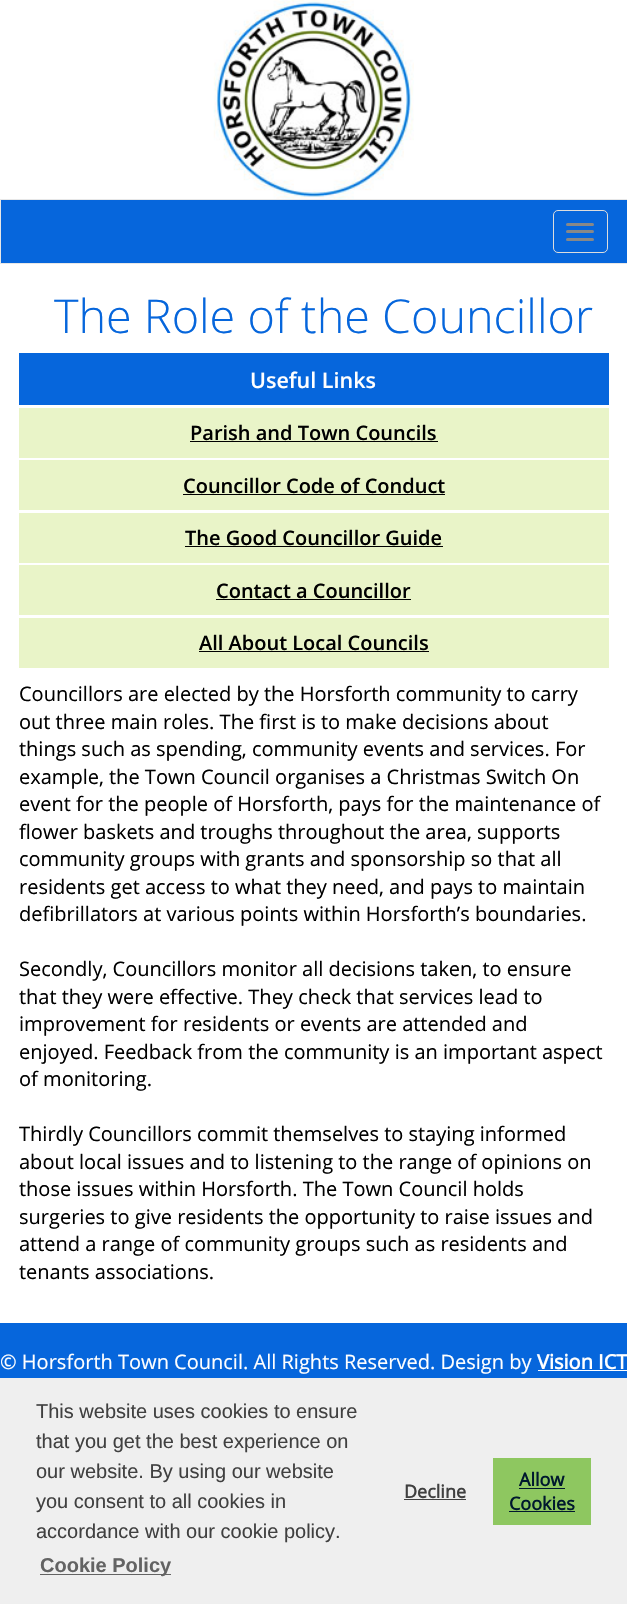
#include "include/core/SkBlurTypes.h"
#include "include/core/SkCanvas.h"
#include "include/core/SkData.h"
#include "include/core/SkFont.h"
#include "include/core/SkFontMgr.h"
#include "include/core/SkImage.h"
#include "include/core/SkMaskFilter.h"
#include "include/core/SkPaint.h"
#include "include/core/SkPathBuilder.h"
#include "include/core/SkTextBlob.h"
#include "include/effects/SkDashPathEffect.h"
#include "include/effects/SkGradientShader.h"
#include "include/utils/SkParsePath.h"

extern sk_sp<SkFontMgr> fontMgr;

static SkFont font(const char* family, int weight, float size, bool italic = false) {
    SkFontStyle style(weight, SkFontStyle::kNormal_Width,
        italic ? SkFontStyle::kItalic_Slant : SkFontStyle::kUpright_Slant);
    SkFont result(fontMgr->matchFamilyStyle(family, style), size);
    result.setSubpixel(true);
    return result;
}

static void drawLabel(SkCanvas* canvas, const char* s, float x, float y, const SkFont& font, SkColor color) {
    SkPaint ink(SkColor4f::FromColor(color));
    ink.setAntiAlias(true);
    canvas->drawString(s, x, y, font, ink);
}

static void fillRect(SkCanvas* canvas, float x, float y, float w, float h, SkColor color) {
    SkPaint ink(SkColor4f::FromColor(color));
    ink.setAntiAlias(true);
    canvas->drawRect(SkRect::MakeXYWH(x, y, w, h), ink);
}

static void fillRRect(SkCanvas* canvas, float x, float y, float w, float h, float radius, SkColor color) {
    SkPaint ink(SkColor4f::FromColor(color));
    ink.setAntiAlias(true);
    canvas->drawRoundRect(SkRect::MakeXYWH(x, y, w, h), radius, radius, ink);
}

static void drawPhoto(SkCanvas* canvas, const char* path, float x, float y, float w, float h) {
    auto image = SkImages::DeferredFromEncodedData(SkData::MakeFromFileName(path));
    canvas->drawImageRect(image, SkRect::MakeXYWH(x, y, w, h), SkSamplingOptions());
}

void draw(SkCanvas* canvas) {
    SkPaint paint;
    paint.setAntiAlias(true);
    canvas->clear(0xFFFFFFFF);
    drawPhoto(canvas, "assets/img1.png", 213, 0, 201, 199);
    paint.setColor(0xFF0666DC);
    canvas->drawRect(SkRect::MakeXYWH(0.5f, 199.5f, 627, 64), paint);
    paint.setStroke(true);
    paint.setStrokeWidth(1);
    paint.setColor(0xFFE7E7E7);
    canvas->drawRect(SkRect::MakeXYWH(0.5f, 199.5f, 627, 64), paint);
    paint.setColor(0xFFDDDDDD);
    canvas->drawRoundRect(SkRect::MakeXYWH(553.5f, 210.5f, 54, 42), 4.5f, 4.5f, paint);
    fillRRect(canvas, 566, 223, 28, 3, 1.5f, 0xFF888888);
    fillRRect(canvas, 566, 230, 28, 3, 1.5f, 0xFF888888);
    fillRRect(canvas, 566, 238, 28, 3, 1.5f, 0xFF888888);
    SkFont font1 = font("Open Sans", 300, 46.75f);
    drawLabel(canvas, "The Role of the Councillor", 54, 333, font1, 0xFF0666DC);
    fillRect(canvas, 19, 353, 590, 52, 0xFF0666DC);
    SkFont font2 = font("Open Sans", 600, 21.5f);
    drawLabel(canvas, "Useful Links", 250, 388, font2, 0xFFFFFFFF);
    fillRect(canvas, 19, 408, 590, 50, 0xFFE9F4C8);
    SkFont font3 = font("Open Sans", 600, 20);
    drawLabel(canvas, "Parish and Town Councils", 190, 440, font3, 0xFF000000);
    fillRect(canvas, 190, 441, 248, 1, 0xFF000000);
    fillRect(canvas, 19, 460, 590, 50, 0xFFE9F4C8);
    drawLabel(canvas, "Councillor Code of Conduct", 183, 493, font3, 0xFF000000);
    fillRect(canvas, 183, 494, 262, 1, 0xFF000000);
    fillRect(canvas, 19, 513, 590, 50, 0xFFE9F4C8);
    drawLabel(canvas, "The Good Councillor Guide", 185, 545, font3, 0xFF000000);
    fillRect(canvas, 185, 546, 258, 1, 0xFF000000);
    fillRect(canvas, 19, 565, 590, 50, 0xFFE9F4C8);
    drawLabel(canvas, "Contact a Councillor", 216, 598, font3, 0xFF000000);
    fillRect(canvas, 216, 599, 195, 1, 0xFF000000);
    fillRect(canvas, 19, 618, 590, 50, 0xFFE9F4C8);
    drawLabel(canvas, "All About Local Councils", 199, 650, font3, 0xFF000000);
    fillRect(canvas, 199, 651, 230, 1, 0xFF000000);
    SkFont font4 = font("Open Sans", 400, 20);
    drawLabel(canvas, "Councillors are elected by the Horsforth community to carry", 19, 701, font4, 0xFF000000);
    drawLabel(canvas, "out three main roles. The first is to make decisions about", 19, 729, font4, 0xFF000000);
    drawLabel(canvas, "things such as spending, community events and services. For", 19, 756, font4, 0xFF000000);
    drawLabel(canvas, "example, the Town Council organises a Christmas Switch On", 19, 784, font4, 0xFF000000);
    drawLabel(canvas, "event for the people of Horsforth, pays for the maintenance of", 19, 811, font4, 0xFF000000);
    drawLabel(canvas, "flower baskets and troughs throughout the area, supports", 19, 839, font4, 0xFF000000);
    drawLabel(canvas, "community groups with grants and sponsorship so that all", 19, 866, font4, 0xFF000000);
    drawLabel(canvas, "residents get access to what they need, and pays to maintain", 19, 894, font4, 0xFF000000);
    drawLabel(canvas, "defibrillators at various points within Horsforth’s boundaries.", 19, 921, font4, 0xFF000000);
    drawLabel(canvas, "Secondly, Councillors monitor all decisions taken, to ensure", 19, 976, font4, 0xFF000000);
    drawLabel(canvas, "that they were effective. They check that services lead to", 19, 1004, font4, 0xFF000000);
    drawLabel(canvas, "improvement for residents or events are attended and", 19, 1031, font4, 0xFF000000);
    drawLabel(canvas, "enjoyed. Feedback from the community is an important aspect", 19, 1059, font4, 0xFF000000);
    drawLabel(canvas, "of monitoring.", 19, 1086, font4, 0xFF000000);
    drawLabel(canvas, "Thirdly Councillors commit themselves to staying informed", 19, 1141, font4, 0xFF000000);
    drawLabel(canvas, "about local issues and to listening to the range of opinions on", 19, 1169, font4, 0xFF000000);
    drawLabel(canvas, "those issues within Horsforth. The Town Council holds", 19, 1196, font4, 0xFF000000);
    drawLabel(canvas, "surgeries to give residents the opportunity to raise issues and", 19, 1224, font4, 0xFF000000);
    drawLabel(canvas, "attend a range of community groups such as residents and", 19, 1251, font4, 0xFF000000);
    drawLabel(canvas, "tenants associations.", 19, 1279, font4, 0xFF000000);
    fillRect(canvas, 0, 1323, 627, 55, 0xFF0666DC);
    drawLabel(canvas, "© Horsforth Town Council. All Rights Reserved. Design by", 0, 1369, font4, 0xFFFFFFFF);
    SkFont font5 = font("Open Sans", 700, 20);
    drawLabel(canvas, "Vision ICT", 537, 1369, font5, 0xFFFFFFFF);
    fillRect(canvas, 538, 1370, 89, 1, 0xFFFFFFFF);
    fillRect(canvas, 0, 1378, 627, 226, 0xFFEFEFEF);
    SkFont font6 = font("Liberation Sans", 400, 20);
    drawLabel(canvas, "This website uses cookies to ensure", 36, 1418, font6, 0xFF404040);
    drawLabel(canvas, "that you get the best experience on", 36, 1448, font6, 0xFF404040);
    drawLabel(canvas, "our website. By using our website", 36, 1478, font6, 0xFF404040);
    drawLabel(canvas, "you consent to all cookies in", 36, 1508, font6, 0xFF404040);
    drawLabel(canvas, "accordance with our cookie policy.", 36, 1538, font6, 0xFF404040);
    fillRect(canvas, 40, 1574, 131, 1, 0xFF636363);
    SkFont font7 = font("Liberation Sans", 700, 20);
    drawLabel(canvas, "Cookie Policy", 40, 1572, font7, 0xFF636363);
    SkFont font8 = font("Open Sans", 700, 18);
    drawLabel(canvas, "Decline", 404, 1498, font8, 0xFF404040);
    fillRect(canvas, 404, 1499, 62, 1, 0xFF404040);
    fillRect(canvas, 493, 1458, 98, 67, 0xFF8EC760);
    drawLabel(canvas, "Allow", 519, 1486, font8, 0xFF00182E);
    fillRect(canvas, 519, 1488, 46, 1, 0xFF00182E);
    drawLabel(canvas, "Cookies", 509, 1510, font8, 0xFF00182E);
    fillRect(canvas, 509, 1511, 66, 1, 0xFF00182E);
}
